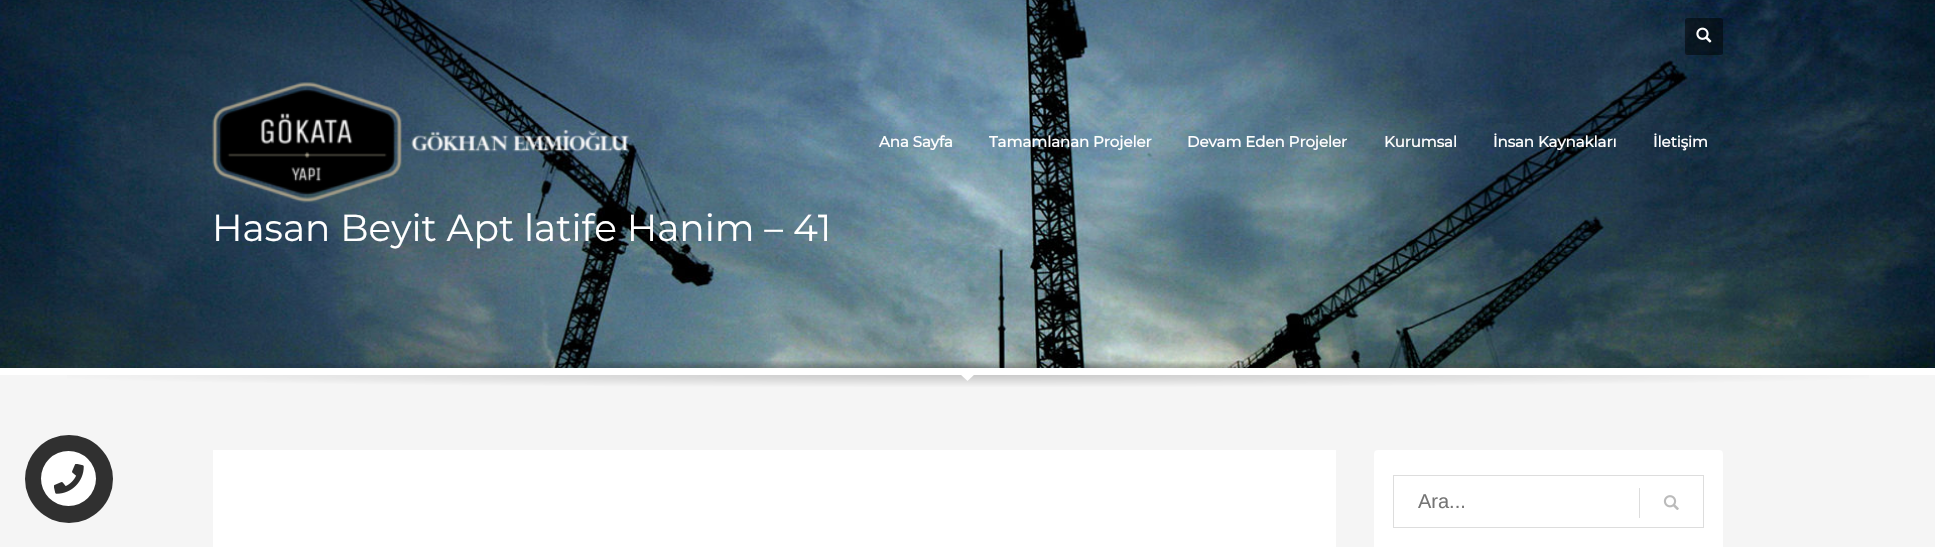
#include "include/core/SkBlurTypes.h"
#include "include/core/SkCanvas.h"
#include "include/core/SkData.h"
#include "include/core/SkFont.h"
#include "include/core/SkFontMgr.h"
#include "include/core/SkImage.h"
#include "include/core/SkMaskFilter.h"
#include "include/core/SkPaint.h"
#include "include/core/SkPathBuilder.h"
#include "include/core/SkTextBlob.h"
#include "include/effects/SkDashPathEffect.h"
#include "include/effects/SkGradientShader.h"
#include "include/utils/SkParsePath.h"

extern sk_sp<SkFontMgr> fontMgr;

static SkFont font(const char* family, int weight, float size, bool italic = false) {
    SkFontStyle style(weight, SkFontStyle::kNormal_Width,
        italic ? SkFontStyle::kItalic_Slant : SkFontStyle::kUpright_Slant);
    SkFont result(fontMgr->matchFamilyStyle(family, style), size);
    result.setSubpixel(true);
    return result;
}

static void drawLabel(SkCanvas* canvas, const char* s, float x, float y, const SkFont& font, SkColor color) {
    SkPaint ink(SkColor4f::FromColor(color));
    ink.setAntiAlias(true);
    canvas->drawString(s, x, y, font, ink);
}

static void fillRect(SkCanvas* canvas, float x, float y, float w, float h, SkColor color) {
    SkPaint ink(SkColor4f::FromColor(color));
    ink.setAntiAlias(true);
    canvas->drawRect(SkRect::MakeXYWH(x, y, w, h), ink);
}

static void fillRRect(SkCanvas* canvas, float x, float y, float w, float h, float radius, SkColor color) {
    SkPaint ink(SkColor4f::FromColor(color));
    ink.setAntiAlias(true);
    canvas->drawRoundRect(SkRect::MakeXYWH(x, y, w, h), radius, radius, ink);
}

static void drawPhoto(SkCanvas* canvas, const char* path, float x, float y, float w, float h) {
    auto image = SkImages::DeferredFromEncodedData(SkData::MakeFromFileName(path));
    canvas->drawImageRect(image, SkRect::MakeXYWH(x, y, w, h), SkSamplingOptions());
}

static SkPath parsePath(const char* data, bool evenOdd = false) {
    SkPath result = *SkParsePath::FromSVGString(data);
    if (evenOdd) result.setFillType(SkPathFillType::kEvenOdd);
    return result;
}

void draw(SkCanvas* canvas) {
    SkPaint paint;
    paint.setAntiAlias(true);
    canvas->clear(0xFFF5F5F5);
    paint.setColor(0xFF303030);
    canvas->drawCircle(69, 479, 44, paint);
    paint.setColor(0xFFFFFFFF);
    canvas->drawCircle(68.5f, 478.5f, 27.5f, paint);
    drawPhoto(canvas, "assets/img1.png", 54, 464, 30, 30);
    drawPhoto(canvas, "assets/img4.png", 0, 0, 1935, 368);
    fillRRect(canvas, 1685, 18, 38, 37, 2.5f, 0x80000000);
    drawPhoto(canvas, "assets/img2.png", 1696, 27, 16, 16);
    drawPhoto(canvas, "assets/img3.png", 212, 82, 417, 121);
    SkFont font1 = font("Montserrat", 700, 15);
    drawLabel(canvas, "Ana Sayfa", 879, 147, font1, 0xFFFFFFFF);
    drawLabel(canvas, "Tamamlanan Projeler", 989, 147, font1, 0xFFFFFFFF);
    drawLabel(canvas, "Devam Eden Projeler", 1187, 147, font1, 0xFFFFFFFF);
    drawLabel(canvas, "Kurumsal", 1384, 147, font1, 0xFFFFFFFF);
    drawLabel(canvas, "İnsan Kaynakları", 1493, 147, font1, 0xFFFFFFFF);
    drawLabel(canvas, "İletişim", 1653, 147, font1, 0xFFFFFFFF);
    SkFont font2 = font("Montserrat", 100, 37.5f);
    drawLabel(canvas, "Hasan Beyit Apt latife Hanim – 41", 212, 241, font2, 0xFFFFFFFF);
    fillRect(canvas, 0, 368, 1935, 7, 0xFFFFFFFF);
    {
        const SkColor colors[] = {0xFFC9C9C9, 0xFFF5F5F5};
        const float stops[] = {0, 0.7f};
        SkMatrix m = SkMatrix::Translate(968, 375).preScale(1368, 18);
        paint.setShader(SkGradientShader::MakeRadial({0, 0}, 1, colors, stops, 2, SkTileMode::kClamp, 0, &m));
        paint.setAlpha(255);
    }
    canvas->drawRect(SkRect::MakeXYWH(67, 375, 1802, 12), paint);
    paint.setShader(nullptr);
    paint.setColor(0xFFFFFFFF);
    canvas->drawPath(parsePath("M960 374H975L967.5 381Z"), paint);
    fillRect(canvas, 213, 450, 1123, 97, 0xFFFFFFFF);
    fillRRect(canvas, 1374, 450, 349, 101, 4, 0xFFFFFFFF);
    paint.setStroke(true);
    paint.setStrokeWidth(1);
    paint.setColor(0xFFDDDDDD);
    canvas->drawRect(SkRect::MakeXYWH(1393.5f, 475.5f, 310, 52), paint);
    SkFont font3 = font("Liberation Sans", 400, 20);
    drawLabel(canvas, "Ara...", 1418, 508, font3, 0xFF757575);
    fillRect(canvas, 1639, 488, 1, 30, 0xFFDDDDDD);
    drawPhoto(canvas, "assets/img5.png", 1663, 495, 16, 15);
}
